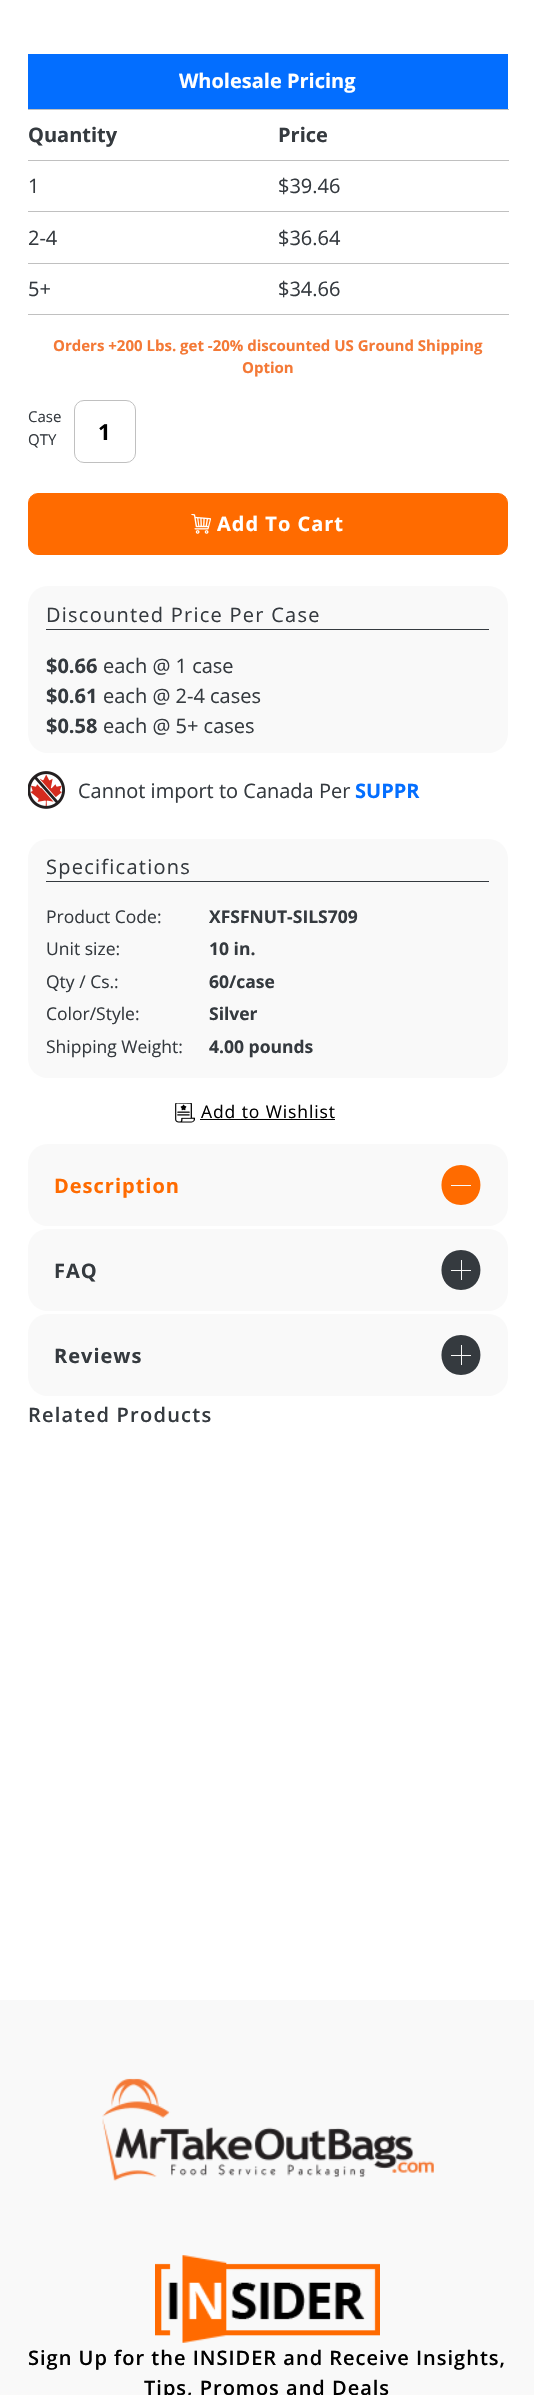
#include "include/core/SkBlurTypes.h"
#include "include/core/SkCanvas.h"
#include "include/core/SkData.h"
#include "include/core/SkFont.h"
#include "include/core/SkFontMgr.h"
#include "include/core/SkImage.h"
#include "include/core/SkMaskFilter.h"
#include "include/core/SkPaint.h"
#include "include/core/SkPathBuilder.h"
#include "include/core/SkTextBlob.h"
#include "include/effects/SkDashPathEffect.h"
#include "include/effects/SkGradientShader.h"
#include "include/utils/SkParsePath.h"

extern sk_sp<SkFontMgr> fontMgr;

static SkFont font(const char* family, int weight, float size, bool italic = false) {
    SkFontStyle style(weight, SkFontStyle::kNormal_Width,
        italic ? SkFontStyle::kItalic_Slant : SkFontStyle::kUpright_Slant);
    SkFont result(fontMgr->matchFamilyStyle(family, style), size);
    result.setSubpixel(true);
    return result;
}

static void drawLabel(SkCanvas* canvas, const char* s, float x, float y, const SkFont& font, SkColor color) {
    SkPaint ink(SkColor4f::FromColor(color));
    ink.setAntiAlias(true);
    canvas->drawString(s, x, y, font, ink);
}

static void drawTracked(SkCanvas* canvas, const char* s, float x, float y, const SkFont& font, const SkPaint& ink, float letter, float word) {
    std::vector<SkGlyphID> glyphs(font.countText(s, strlen(s), SkTextEncoding::kUTF8));
    std::vector<float> xs(glyphs.size());
    font.textToGlyphs(s, strlen(s), SkTextEncoding::kUTF8, glyphs);
    font.getXPos(glyphs, xs, x);
    float extra = 0;
    for (size_t i = 0; i < glyphs.size(); i++) {
        xs[i] += extra;
        extra += letter + word * (glyphs[i] == font.unicharToGlyph(' '));
    }
    canvas->drawTextBlob(SkTextBlob::MakeFromPosHGlyphs(glyphs, xs, y, font), 0, 0, ink);
}

static void fillRect(SkCanvas* canvas, float x, float y, float w, float h, SkColor color) {
    SkPaint ink(SkColor4f::FromColor(color));
    ink.setAntiAlias(true);
    canvas->drawRect(SkRect::MakeXYWH(x, y, w, h), ink);
}

static void fillRRect(SkCanvas* canvas, float x, float y, float w, float h, float radius, SkColor color) {
    SkPaint ink(SkColor4f::FromColor(color));
    ink.setAntiAlias(true);
    canvas->drawRoundRect(SkRect::MakeXYWH(x, y, w, h), radius, radius, ink);
}

static void drawPhoto(SkCanvas* canvas, const char* path, float x, float y, float w, float h) {
    auto image = SkImages::DeferredFromEncodedData(SkData::MakeFromFileName(path));
    canvas->drawImageRect(image, SkRect::MakeXYWH(x, y, w, h), SkSamplingOptions());
}

static SkPath parsePath(const char* data, bool evenOdd = false) {
    SkPath result = *SkParsePath::FromSVGString(data);
    if (evenOdd) result.setFillType(SkPathFillType::kEvenOdd);
    return result;
}

void draw(SkCanvas* canvas) {
    SkPaint paint;
    paint.setAntiAlias(true);
    canvas->clear(0xFFFFFFFF);
    fillRect(canvas, 28, 54, 480, 55, 0xFF036EFF);
    fillRect(canvas, 28, 109, 481, 1, 0xFFC0C0C0);
    SkFont font1 = font("Open Sans", 700, 20);
    drawLabel(canvas, "Wholesale Pricing", 179, 88, font1, 0xFFFFFFFF);
    fillRect(canvas, 28, 160, 481, 1, 0xFFC0C0C0);
    drawLabel(canvas, "Quantity", 28, 142, font1, 0xFF353A3F);
    drawLabel(canvas, "Price", 278, 142, font1, 0xFF353A3F);
    fillRect(canvas, 28, 211, 481, 1, 0xFFC0C0C0);
    SkFont font2 = font("Open Sans", 400, 20);
    drawLabel(canvas, "1", 28, 193, font2, 0xFF353A3F);
    drawLabel(canvas, "$39.46", 278, 193, font2, 0xFF353A3F);
    fillRect(canvas, 28, 263, 481, 1, 0xFFC0C0C0);
    drawLabel(canvas, "2-4", 28, 245, font2, 0xFF353A3F);
    drawLabel(canvas, "$36.64", 278, 245, font2, 0xFF353A3F);
    fillRect(canvas, 28, 314, 481, 1, 0xFFC0C0C0);
    drawLabel(canvas, "5+", 28, 296, font2, 0xFF353A3F);
    drawLabel(canvas, "$34.66", 278, 296, font2, 0xFF353A3F);
    SkFont font3 = font("Open Sans", 700, 15);
    drawLabel(canvas, "Orders +200 Lbs. get -20% discounted US Ground Shipping", 53, 351, font3, 0xFFF47936);
    drawLabel(canvas, "Option", 242, 373, font3, 0xFFF47936);
    SkFont font4 = font("Open Sans", 400, 15);
    drawLabel(canvas, "Case", 28, 422, font4, 0xFF353A3F);
    drawLabel(canvas, "QTY", 28, 445, font4, 0xFF353A3F);
    paint.setStroke(true);
    paint.setStrokeWidth(1);
    paint.setColor(0xFFC0C0C0);
    canvas->drawRoundRect(SkRect::MakeXYWH(74.5f, 400.5f, 61, 62), 9.5f, 9.5f, paint);
    SkFont font5 = font("Open Sans", 700, 22);
    paint.setStroke(false);
    paint.setColor(0xFF000000);
    drawTracked(canvas, "1", 98, 440, font5, paint, 1, 0);
    paint.setColor(0xFFFF6B00);
    canvas->drawRoundRect(SkRect::MakeXYWH(28.5f, 493.5f, 479, 61), 9.5f, 9.5f, paint);
    paint.setStroke(true);
    canvas->drawRoundRect(SkRect::MakeXYWH(28.5f, 493.5f, 479, 61), 9.5f, 9.5f, paint);
    drawPhoto(canvas, "assets/img1.png", 191, 514, 20, 20);
    paint.setStroke(false);
    paint.setColor(0xFFFFFFFF);
    drawTracked(canvas, "Add To Cart", 217, 531, font1, paint, 1, 0);
    fillRRect(canvas, 28, 586, 480, 167, 20, 0xFFF9F9F9);
    fillRect(canvas, 46, 629, 443, 1, 0xFF353A3F);
    paint.setColor(0xFF353A3F);
    drawTracked(canvas, "Discounted Price Per Case", 46, 622, font2, paint, 1.25f, 0);
    drawLabel(canvas, "$0.66", 46, 673, font1, 0xFF353A3F);
    drawLabel(canvas, "each @ 1 case", 103, 673, font2, 0xFF353A3F);
    drawLabel(canvas, "$0.61", 46, 703, font1, 0xFF353A3F);
    drawLabel(canvas, "each @ 2-4 cases", 103, 703, font2, 0xFF353A3F);
    drawLabel(canvas, "$0.58", 46, 733, font1, 0xFF353A3F);
    drawLabel(canvas, "each @ 5+ cases", 103, 733, font2, 0xFF353A3F);
    drawPhoto(canvas, "assets/img2.png", 28, 771, 37, 38);
    drawLabel(canvas, "Cannot import to Canada Per", 78, 798, font2, 0xFF353A3F);
    drawLabel(canvas, "SUPPR", 355, 798, font1, 0xFF036EFF);
    fillRRect(canvas, 28, 839, 480, 239, 20, 0xFFF9F9F9);
    fillRect(canvas, 46, 881, 443, 1, 0xFF353A3F);
    drawTracked(canvas, "Specifications", 46, 874, font2, paint, 1.25f, 0);
    SkFont font6 = font("Open Sans", 400, 17.5f);
    drawLabel(canvas, "Product Code:", 46, 923, font6, 0xFF353A3F);
    SkFont font7 = font("Open Sans", 700, 17.5f);
    drawLabel(canvas, "XFSFNUT-SILS709", 209, 923, font7, 0xFF353A3F);
    drawLabel(canvas, "Unit size:", 46, 955, font6, 0xFF353A3F);
    drawLabel(canvas, "10 in.", 209, 955, font7, 0xFF353A3F);
    drawLabel(canvas, "Qty / Cs.:", 46, 988, font6, 0xFF353A3F);
    drawLabel(canvas, "60/case", 209, 988, font7, 0xFF353A3F);
    drawLabel(canvas, "Color/Style:", 46, 1020, font6, 0xFF353A3F);
    drawLabel(canvas, "Silver", 209, 1020, font7, 0xFF353A3F);
    drawLabel(canvas, "Shipping Weight:", 46, 1053, font6, 0xFF353A3F);
    drawLabel(canvas, "4.00 pounds", 209, 1053, font7, 0xFF353A3F);
    drawPhoto(canvas, "assets/img3.png", 175, 1103, 20, 20);
    paint.setColor(0xFF000000);
    drawTracked(canvas, "Add to Wishlist", 201, 1118, font6, paint, 0.9f, 0);
    fillRect(canvas, 200, 1119, 135, 1, 0xFF000000);
    fillRRect(canvas, 28, 1144, 480, 82, 20, 0xFFF9F9F9);
    paint.setColor(0xFFFF6B00);
    drawTracked(canvas, "Description", 54, 1193, font1, paint, 1, 0);
    canvas->drawPath(parsePath("M461 1165C435 1165 435 1205 461 1205C487 1205 487 1165 461 1165ZM471 1186H451V1185H471Z"), paint);
    fillRRect(canvas, 28, 1229, 480, 82, 20, 0xFFF9F9F9);
    paint.setColor(0xFF353A3F);
    drawTracked(canvas, "FAQ", 54, 1278, font1, paint, 1, 0);
    canvas->drawPath(parsePath("M461 1250C435 1250 435 1290 461 1290C487 1290 487 1250 461 1250ZM471 1271H462V1280H461V1271H451V1270H461V1260H462V1270H471Z"), paint);
    fillRRect(canvas, 28, 1314, 480, 82, 20, 0xFFF9F9F9);
    drawTracked(canvas, "Reviews", 54, 1363, font1, paint, 1, 0);
    canvas->drawPath(parsePath("M461 1335C435 1335 435 1375 461 1375C487 1375 487 1335 461 1335ZM471 1356H462V1365H461V1356H451V1355H461V1345H462V1355H471Z"), paint);
    SkFont font8 = font("Open Sans", 600, 20);
    drawTracked(canvas, "Related Products", 28, 1422, font8, paint, 1.25f, 0);
    fillRect(canvas, 0, 2000, 534, 395, 0xFFF9F9F9);
    drawPhoto(canvas, "assets/img4.png", 102, 2078, 332, 103);
    drawPhoto(canvas, "assets/img5.png", 155, 2255, 225, 88);
    paint.setColor(0xFF000000);
    drawTracked(canvas, "Sign Up for the INSIDER and Receive Insights,", 28, 2365, font8, paint, 1, 0);
    drawTracked(canvas, "Tips, Promos and Deals", 144, 2395, font8, paint, 1, 0);
}
